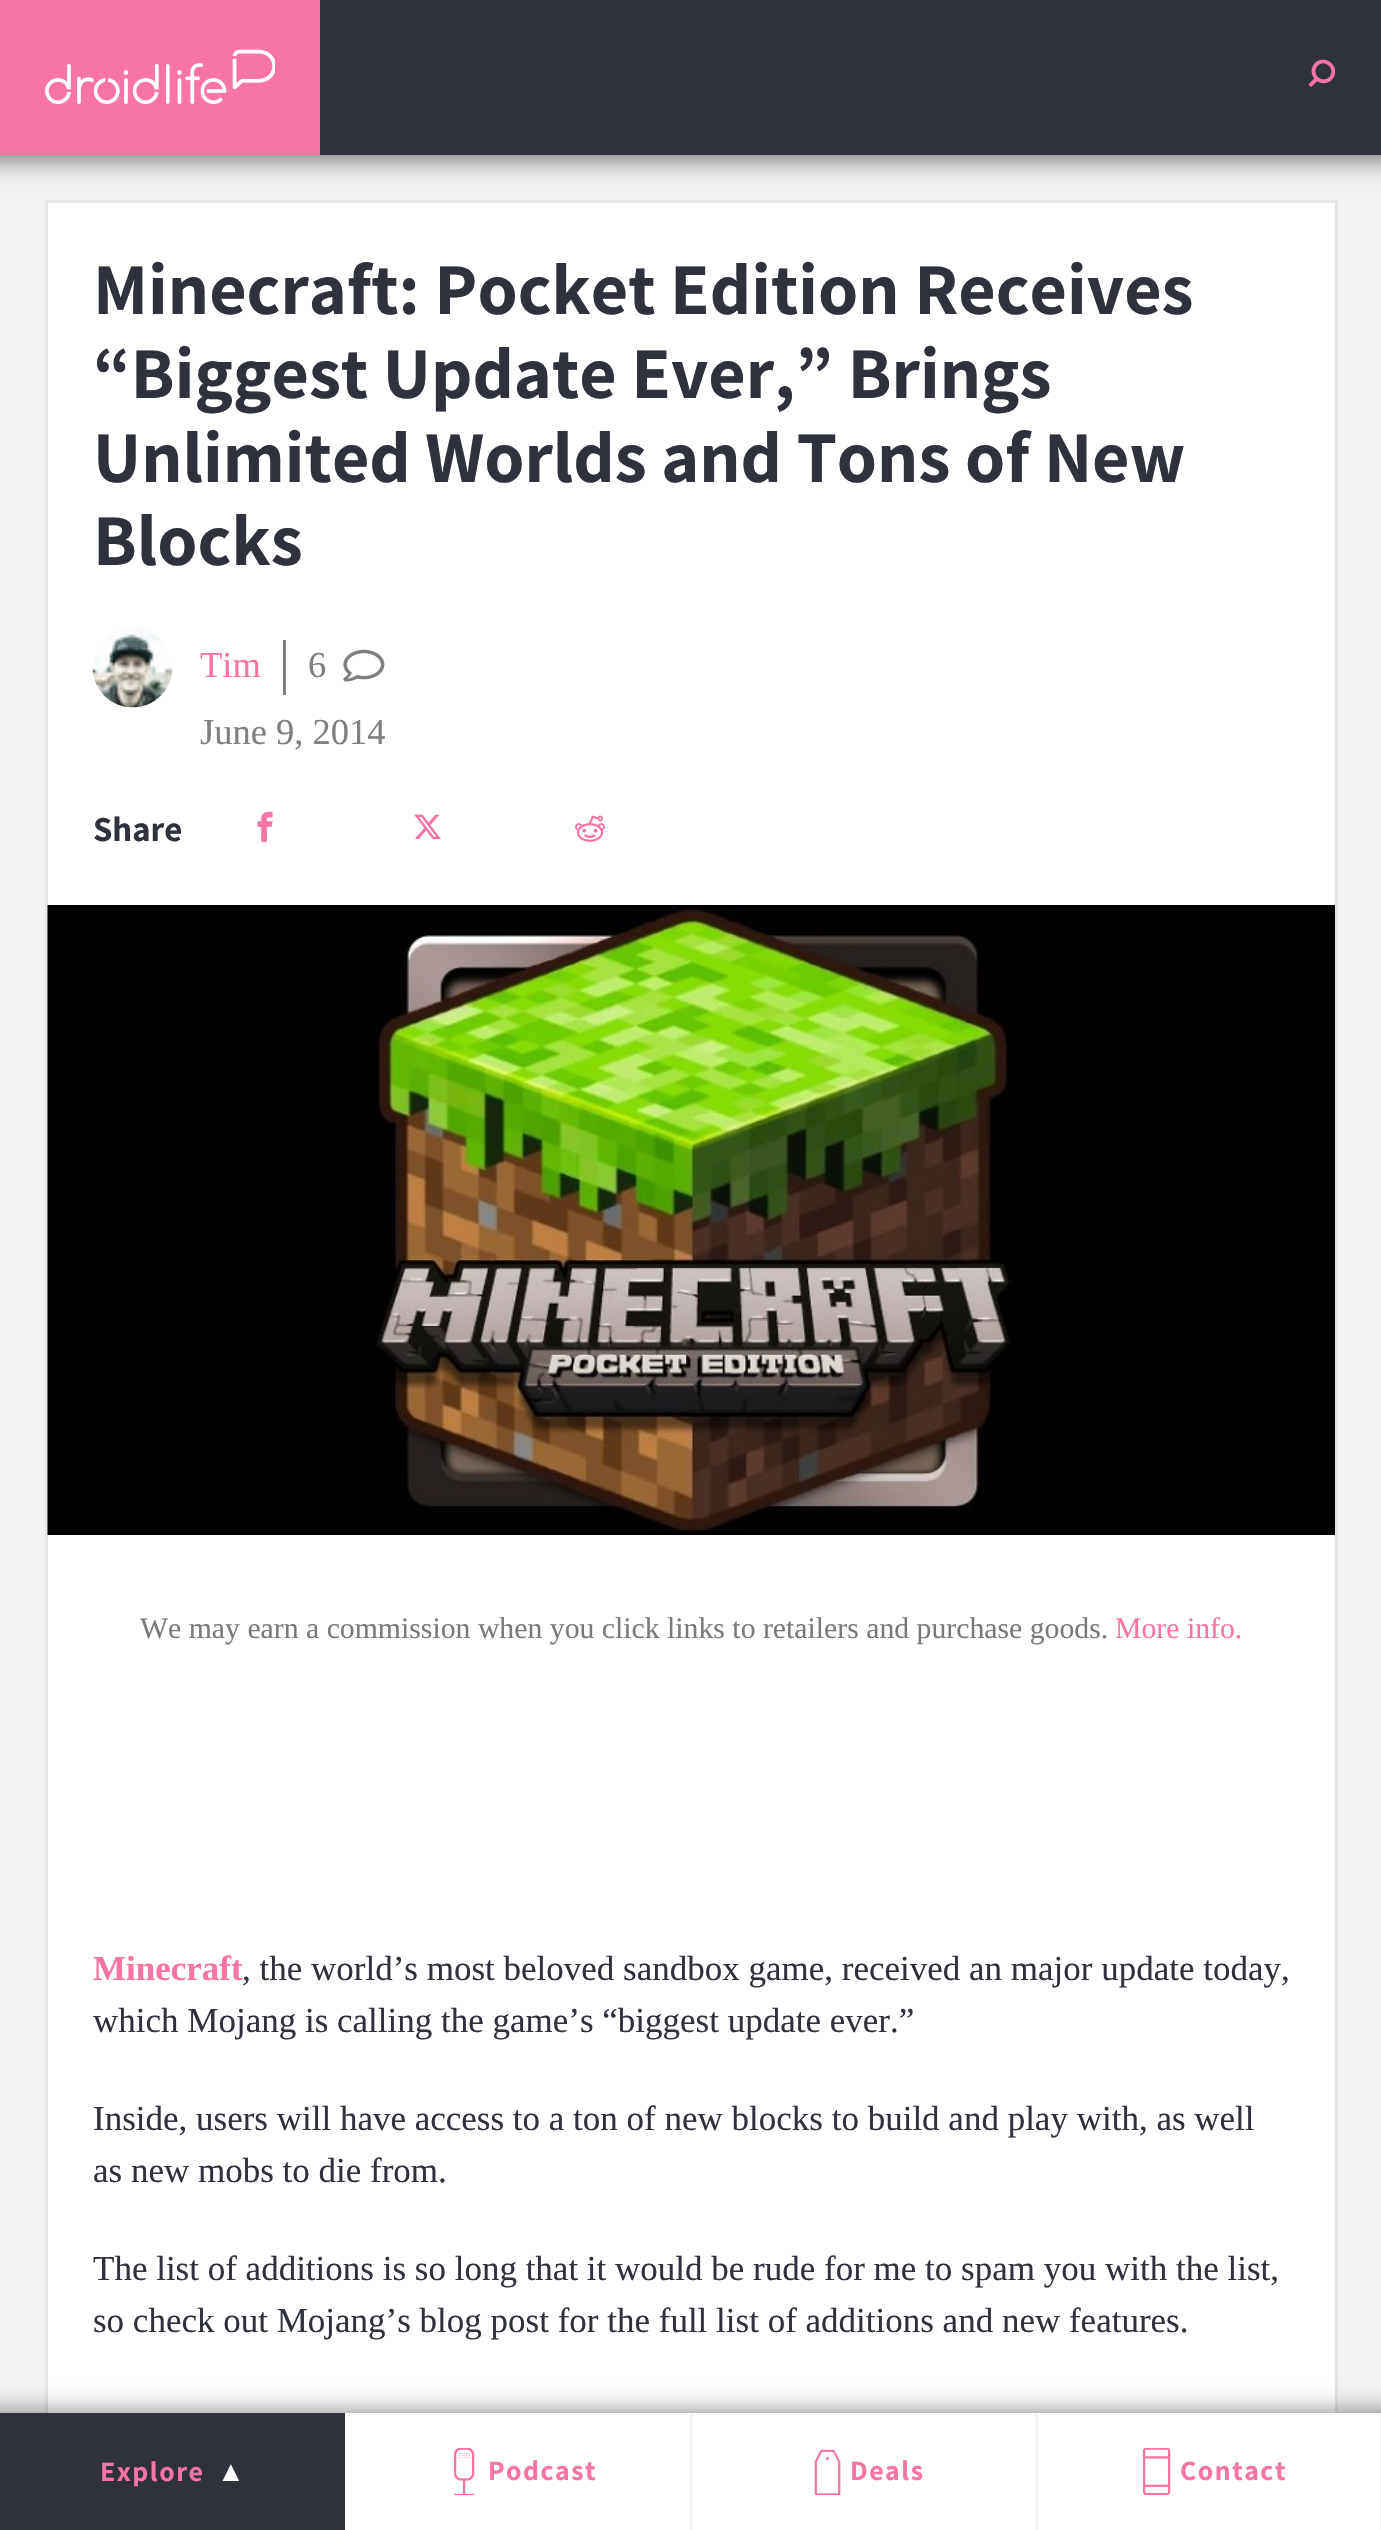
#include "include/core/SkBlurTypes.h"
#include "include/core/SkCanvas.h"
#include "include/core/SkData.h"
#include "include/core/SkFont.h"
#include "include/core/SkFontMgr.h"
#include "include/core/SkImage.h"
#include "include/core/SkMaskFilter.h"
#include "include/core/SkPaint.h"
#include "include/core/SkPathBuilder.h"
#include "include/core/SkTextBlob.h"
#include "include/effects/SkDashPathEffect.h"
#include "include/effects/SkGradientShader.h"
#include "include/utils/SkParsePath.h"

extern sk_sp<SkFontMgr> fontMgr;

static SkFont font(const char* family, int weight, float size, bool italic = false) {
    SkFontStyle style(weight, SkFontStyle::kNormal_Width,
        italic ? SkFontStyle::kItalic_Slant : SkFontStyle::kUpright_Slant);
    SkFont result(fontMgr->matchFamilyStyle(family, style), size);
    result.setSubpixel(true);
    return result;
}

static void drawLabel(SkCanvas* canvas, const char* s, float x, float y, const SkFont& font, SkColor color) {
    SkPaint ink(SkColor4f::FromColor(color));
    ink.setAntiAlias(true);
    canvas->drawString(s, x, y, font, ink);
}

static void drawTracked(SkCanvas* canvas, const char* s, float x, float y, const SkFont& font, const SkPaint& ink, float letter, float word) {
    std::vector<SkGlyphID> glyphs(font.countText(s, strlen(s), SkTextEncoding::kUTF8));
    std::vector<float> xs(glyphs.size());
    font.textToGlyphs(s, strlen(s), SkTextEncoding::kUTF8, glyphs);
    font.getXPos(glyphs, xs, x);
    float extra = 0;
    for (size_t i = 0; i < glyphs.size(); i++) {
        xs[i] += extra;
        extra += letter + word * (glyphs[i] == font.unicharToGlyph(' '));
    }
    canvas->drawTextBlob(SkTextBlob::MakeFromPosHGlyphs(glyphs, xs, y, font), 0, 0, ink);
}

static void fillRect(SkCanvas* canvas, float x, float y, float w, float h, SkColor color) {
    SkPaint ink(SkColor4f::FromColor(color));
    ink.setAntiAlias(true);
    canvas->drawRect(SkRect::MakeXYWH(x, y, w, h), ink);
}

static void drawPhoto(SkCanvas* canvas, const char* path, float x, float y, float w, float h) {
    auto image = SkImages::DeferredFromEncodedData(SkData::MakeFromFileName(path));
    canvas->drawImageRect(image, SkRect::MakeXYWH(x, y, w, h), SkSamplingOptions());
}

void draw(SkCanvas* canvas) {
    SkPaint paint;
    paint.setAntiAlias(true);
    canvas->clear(0xFFF2F2F3);
    fillRect(canvas, 48, 203, 1287, 2210, 0xFFFFFFFF);
    paint.setStroke(true);
    paint.setStrokeWidth(3);
    paint.setColor(0xFFE5E5E6);
    canvas->drawRect(SkRect::MakeXYWH(46.5f, 201.5f, 1290, 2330), paint);
    SkFont font1 = font("Assistant", 200, 72.75f);
    drawLabel(canvas, "Minecraft: Pocket Edition Receives", 93, 314, font1, 0xFF2F313C);
    drawLabel(canvas, "“Biggest Update Ever,” Brings", 93, 398, font1, 0xFF2F313C);
    drawLabel(canvas, "Unlimited Worlds and Tons of New", 93, 482, font1, 0xFF2F313C);
    drawLabel(canvas, "Blocks", 93, 565, font1, 0xFF2F313C);
    drawPhoto(canvas, "assets/img1.png", 92, 628, 81, 80);
    SkFont font2 = font("Liberation Serif", 400, 36.5f);
    drawLabel(canvas, "Tim", 200, 677, font2, 0xFFF674A6);
    fillRect(canvas, 283, 640, 3, 55, 0xFF7E7F81);
    drawLabel(canvas, "6", 308, 677, font2, 0xFF7E7F81);
    drawPhoto(canvas, "assets/img2.png", 343, 649, 42, 33);
    drawLabel(canvas, "June 9, 2014", 200, 744, font2, 0xFF7E7F81);
    SkFont font3 = font("Assistant", 200, 35);
    drawLabel(canvas, "Share", 93, 841, font3, 0xFF2F313C);
    drawPhoto(canvas, "assets/img3.png", 257, 811, 16, 31);
    drawPhoto(canvas, "assets/img4.png", 414, 814, 27, 26);
    drawPhoto(canvas, "assets/img5.png", 575, 815, 30, 27);
    drawPhoto(canvas, "assets/img6.png", 47, 905, 1288, 630);
    SkFont font4 = font("Liberation Serif", 400, 29.75f);
    drawLabel(canvas, "We may earn a commission when you click links to retailers and purchase goods.", 140, 1638, font4, 0xFF797979);
    drawLabel(canvas, "More info.", 1115, 1638, font4, 0xFFF674A6);
    SkFont font5 = font("Liberation Serif", 700, 35);
    drawLabel(canvas, "Minecraft", 93, 1980, font5, 0xFFF674A6);
    SkFont font6 = font("Liberation Serif", 400, 35);
    drawLabel(canvas, ", the world’s most beloved sandbox game, received an major update today,", 242, 1980, font6, 0xFF2F313C);
    drawLabel(canvas, "which Mojang is calling the game’s “biggest update ever.”", 93, 2032, font6, 0xFF2F313C);
    drawLabel(canvas, "Inside, users will have access to a ton of new blocks to build and play with, as well", 93, 2130, font6, 0xFF2F313C);
    drawLabel(canvas, "as new mobs to die from.", 93, 2182, font6, 0xFF2F313C);
    drawLabel(canvas, "The list of additions is so long that it would be rude for me to spam you with the list,", 93, 2280, font6, 0xFF2F313C);
    drawLabel(canvas, "so check out Mojang’s blog post for the full list of additions and new features.", 93, 2332, font6, 0xFF2F313C);
    paint.setStroke(false);
    paint.setColor(0x80000000);
    paint.setMaskFilter(SkMaskFilter::MakeBlur(kNormal_SkBlurStyle, 12.5f));
    canvas->drawRect(SkRect::MakeXYWH(-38, -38, 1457, 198), paint);
    paint.setMaskFilter(nullptr);
    fillRect(canvas, 0, 0, 320, 155, 0xFFF674A6);
    drawPhoto(canvas, "assets/img7.png", 45, 49, 230, 55);
    fillRect(canvas, 320, 0, 1061, 155, 0xFF2F313C);
    drawPhoto(canvas, "assets/img8.png", 1308, 59, 28, 28);
    paint.setMaskFilter(SkMaskFilter::MakeBlur(kNormal_SkBlurStyle, 12.5f));
    canvas->drawRect(SkRect::MakeXYWH(-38, 2413, 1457, 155), paint);
    paint.setMaskFilter(nullptr);
    fillRect(canvas, 345, 2413, 1035, 117, 0xFFFFFFFF);
    fillRect(canvas, 0, 2413, 345, 117, 0xFF2F313C);
    SkFont font7 = font("Assistant", 200, 28);
    paint.setColor(0xFFF674A6);
    drawTracked(canvas, "Explore", 100, 2481, font7, paint, 1.5f, 0);
    SkFont font8 = font("Liberation Sans", 400, 28);
    paint.setColor(0xFFFFFFFF);
    drawTracked(canvas, "▲", 217, 2481, font8, paint, 1.5f, 0);
    fillRect(canvas, 690, 2413, 3, 117, 0xFFF2F2F3);
    drawPhoto(canvas, "assets/img9.png", 453, 2448, 22, 47);
    paint.setColor(0xFFF674A6);
    drawTracked(canvas, "Podcast", 488, 2480, font7, paint, 1.5f, 0);
    fillRect(canvas, 1035, 2413, 3, 117, 0xFFF2F2F3);
    drawPhoto(canvas, "assets/img10.png", 814, 2449, 27, 46);
    drawTracked(canvas, "Deals", 850, 2480, font7, paint, 1.5f, 0);
    fillRect(canvas, 1380, 2413, 1, 117, 0xFFF2F2F3);
    drawPhoto(canvas, "assets/img11.png", 1142, 2448, 29, 47);
    drawTracked(canvas, "Contact", 1180, 2480, font7, paint, 1.5f, 0);
}
